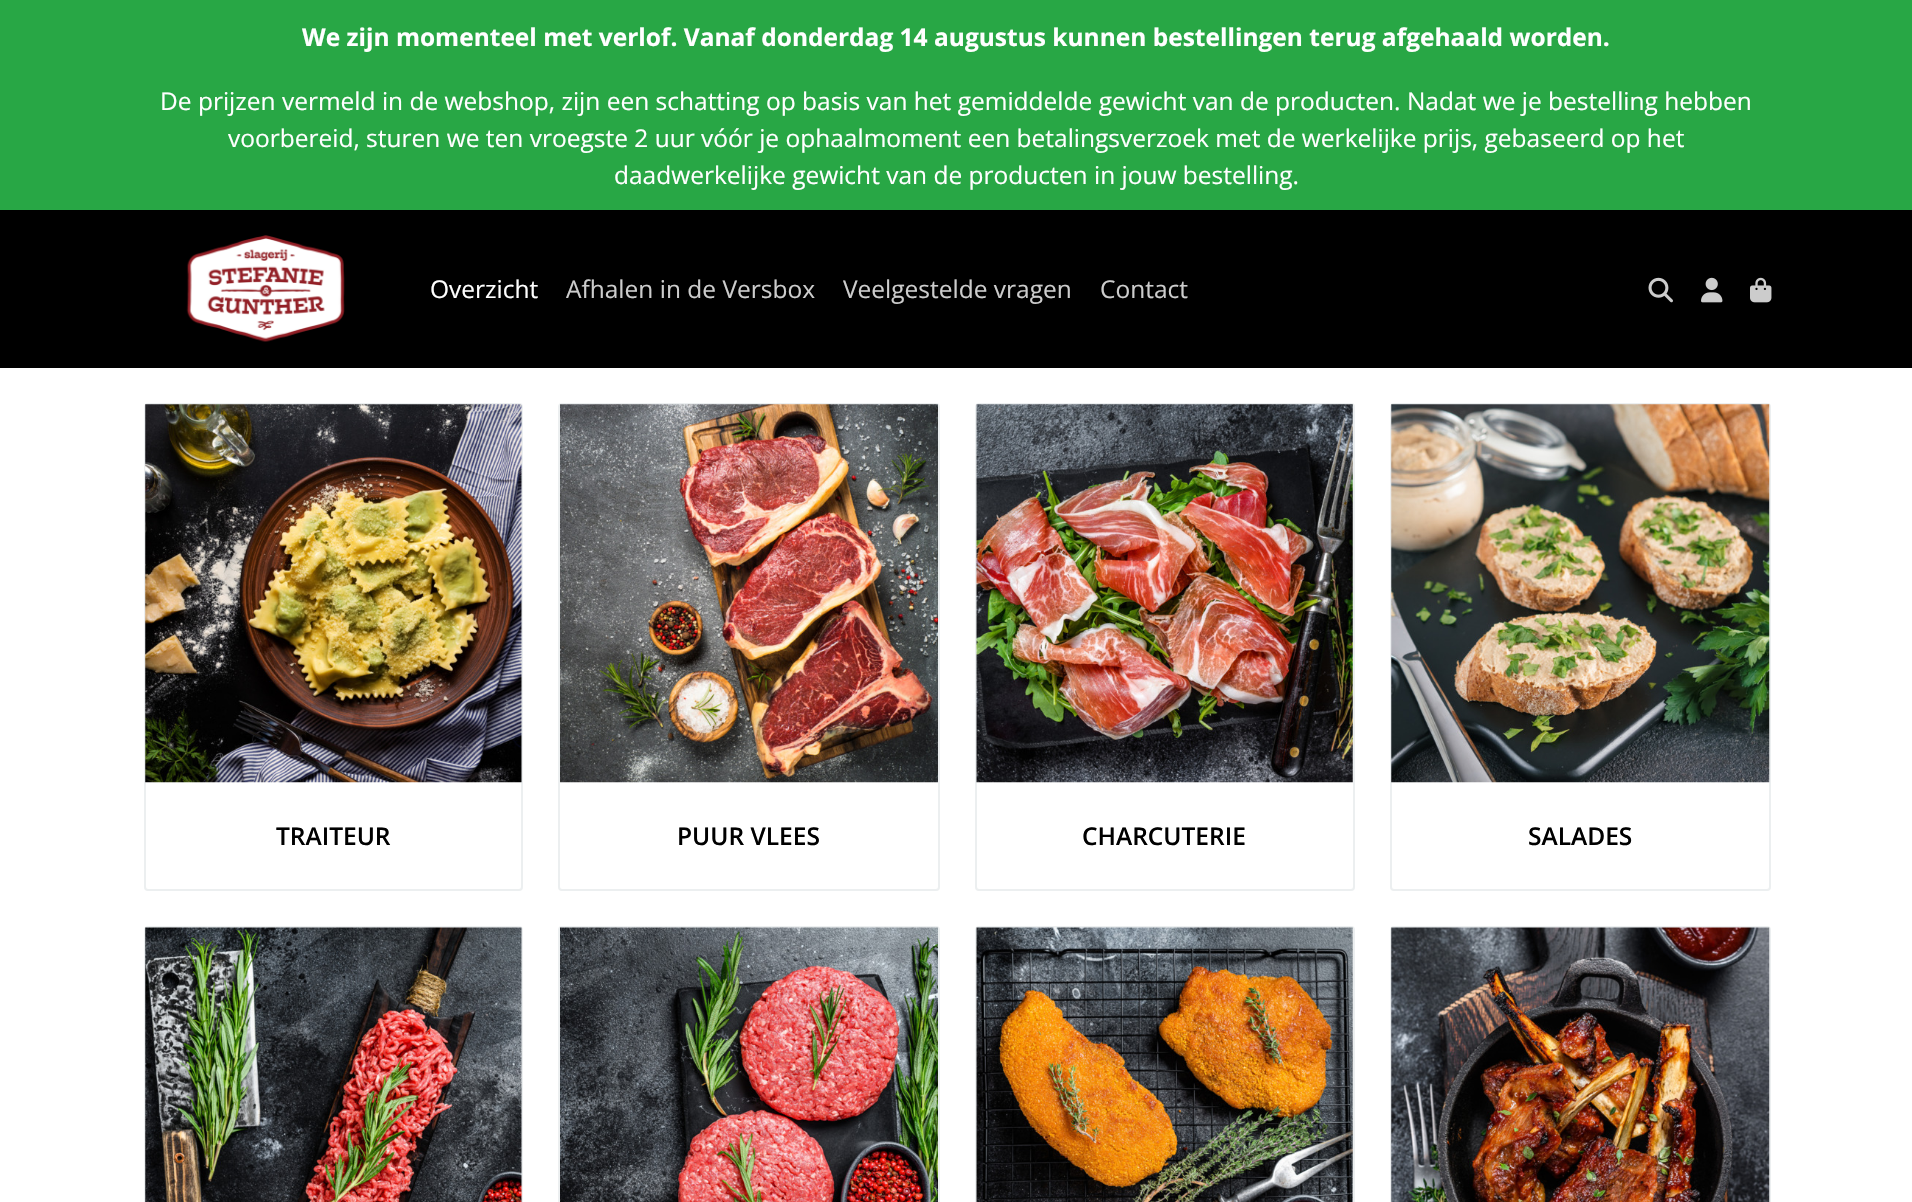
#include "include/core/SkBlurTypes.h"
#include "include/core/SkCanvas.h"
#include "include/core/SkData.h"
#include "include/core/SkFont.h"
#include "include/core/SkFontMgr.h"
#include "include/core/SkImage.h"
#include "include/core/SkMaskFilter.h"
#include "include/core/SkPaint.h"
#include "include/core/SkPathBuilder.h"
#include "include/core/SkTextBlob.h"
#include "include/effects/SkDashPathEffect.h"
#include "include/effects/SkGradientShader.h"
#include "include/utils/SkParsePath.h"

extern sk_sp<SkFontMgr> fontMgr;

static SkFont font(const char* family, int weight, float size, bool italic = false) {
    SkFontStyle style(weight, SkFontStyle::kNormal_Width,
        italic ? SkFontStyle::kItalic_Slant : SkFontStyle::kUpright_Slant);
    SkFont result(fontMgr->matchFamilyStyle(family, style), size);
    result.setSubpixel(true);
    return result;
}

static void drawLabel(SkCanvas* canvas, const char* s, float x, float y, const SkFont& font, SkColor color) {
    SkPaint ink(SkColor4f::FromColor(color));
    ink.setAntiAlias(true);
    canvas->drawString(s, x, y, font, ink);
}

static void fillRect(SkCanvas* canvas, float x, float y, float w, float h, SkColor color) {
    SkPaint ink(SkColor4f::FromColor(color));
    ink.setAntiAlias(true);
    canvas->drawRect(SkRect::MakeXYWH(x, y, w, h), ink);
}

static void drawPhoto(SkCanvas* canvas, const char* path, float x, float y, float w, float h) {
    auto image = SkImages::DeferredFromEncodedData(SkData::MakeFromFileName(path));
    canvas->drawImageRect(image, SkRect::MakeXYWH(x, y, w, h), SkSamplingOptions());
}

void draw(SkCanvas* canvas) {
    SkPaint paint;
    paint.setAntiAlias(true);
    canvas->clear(0xFFFFFFFF);
    fillRect(canvas, 0, 0, 1912, 210, 0xFF28A745);
    SkFont font1 = font("Open Sans", 700, 24.5f);
    drawLabel(canvas, "We zijn momenteel met verlof. Vanaf donderdag 14 augustus kunnen bestellingen terug afgehaald worden.", 302, 46, font1, 0xFFFFFFFF);
    SkFont font2 = font("Open Sans", 400, 24.5f);
    drawLabel(canvas, "De prijzen vermeld in de webshop, zijn een schatting op basis van het gemiddelde gewicht van de producten. Nadat we je bestelling hebben", 160, 110, font2, 0xFFFFFFFF);
    drawLabel(canvas, "voorbereid, sturen we ten vroegste 2 uur vóór je ophaalmoment een betalingsverzoek met de werkelijke prijs, gebaseerd op het", 228, 147, font2, 0xFFFFFFFF);
    drawLabel(canvas, "daadwerkelijke gewicht van de producten in jouw bestelling.", 614, 184, font2, 0xFFFFFFFF);
    fillRect(canvas, 0, 210, 1912, 158, 0xFF000000);
    drawPhoto(canvas, "assets/img1.png", 186, 235, 159, 107);
    drawLabel(canvas, "Overzicht", 430, 298, font2, 0xFFFFFFFF);
    drawLabel(canvas, "Afhalen in de Versbox", 566, 298, font2, 0xFFCCCCCC);
    drawLabel(canvas, "Veelgestelde vragen", 843, 298, font2, 0xFFCCCCCC);
    drawLabel(canvas, "Contact", 1100, 298, font2, 0xFFCCCCCC);
    drawPhoto(canvas, "assets/img2.png", 1648, 277, 25, 26);
    drawPhoto(canvas, "assets/img3.png", 1701, 277, 22, 26);
    drawPhoto(canvas, "assets/img4.png", 1750, 277, 22, 26);
    paint.setStroke(true);
    paint.setStrokeWidth(2);
    paint.setColor(0xFFECEFF0);
    canvas->drawRoundRect(SkRect::MakeXYWH(145, 404, 377, 486), 3, 3, paint);
    drawPhoto(canvas, "assets/img5.png", 145, 404, 377, 379);
    SkFont font3 = font("Open Sans", 600, 24.5f);
    drawLabel(canvas, "TRAITEUR", 276, 845, font3, 0xFF000000);
    canvas->drawRoundRect(SkRect::MakeXYWH(559, 404, 380, 486), 3, 3, paint);
    drawPhoto(canvas, "assets/img6.png", 560, 404, 378, 379);
    drawLabel(canvas, "PUUR VLEES", 677, 845, font3, 0xFF000000);
    canvas->drawRoundRect(SkRect::MakeXYWH(976, 404, 378, 486), 3, 3, paint);
    drawPhoto(canvas, "assets/img7.png", 976, 404, 377, 379);
    drawLabel(canvas, "CHARCUTERIE", 1082, 845, font3, 0xFF000000);
    canvas->drawRoundRect(SkRect::MakeXYWH(1391, 404, 379, 486), 3, 3, paint);
    drawPhoto(canvas, "assets/img8.png", 1391, 404, 379, 379);
    drawLabel(canvas, "SALADES", 1528, 845, font3, 0xFF000000);
    canvas->drawRoundRect(SkRect::MakeXYWH(145, 927, 377, 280), 3, 3, paint);
    drawPhoto(canvas, "assets/img9.png", 145, 927, 377, 275);
    canvas->drawRoundRect(SkRect::MakeXYWH(559, 927, 380, 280), 3, 3, paint);
    drawPhoto(canvas, "assets/img10.png", 560, 927, 378, 275);
    canvas->drawRoundRect(SkRect::MakeXYWH(976, 927, 378, 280), 3, 3, paint);
    drawPhoto(canvas, "assets/img11.png", 976, 927, 377, 275);
    canvas->drawRoundRect(SkRect::MakeXYWH(1391, 927, 379, 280), 3, 3, paint);
    drawPhoto(canvas, "assets/img12.png", 1391, 927, 379, 275);
}
